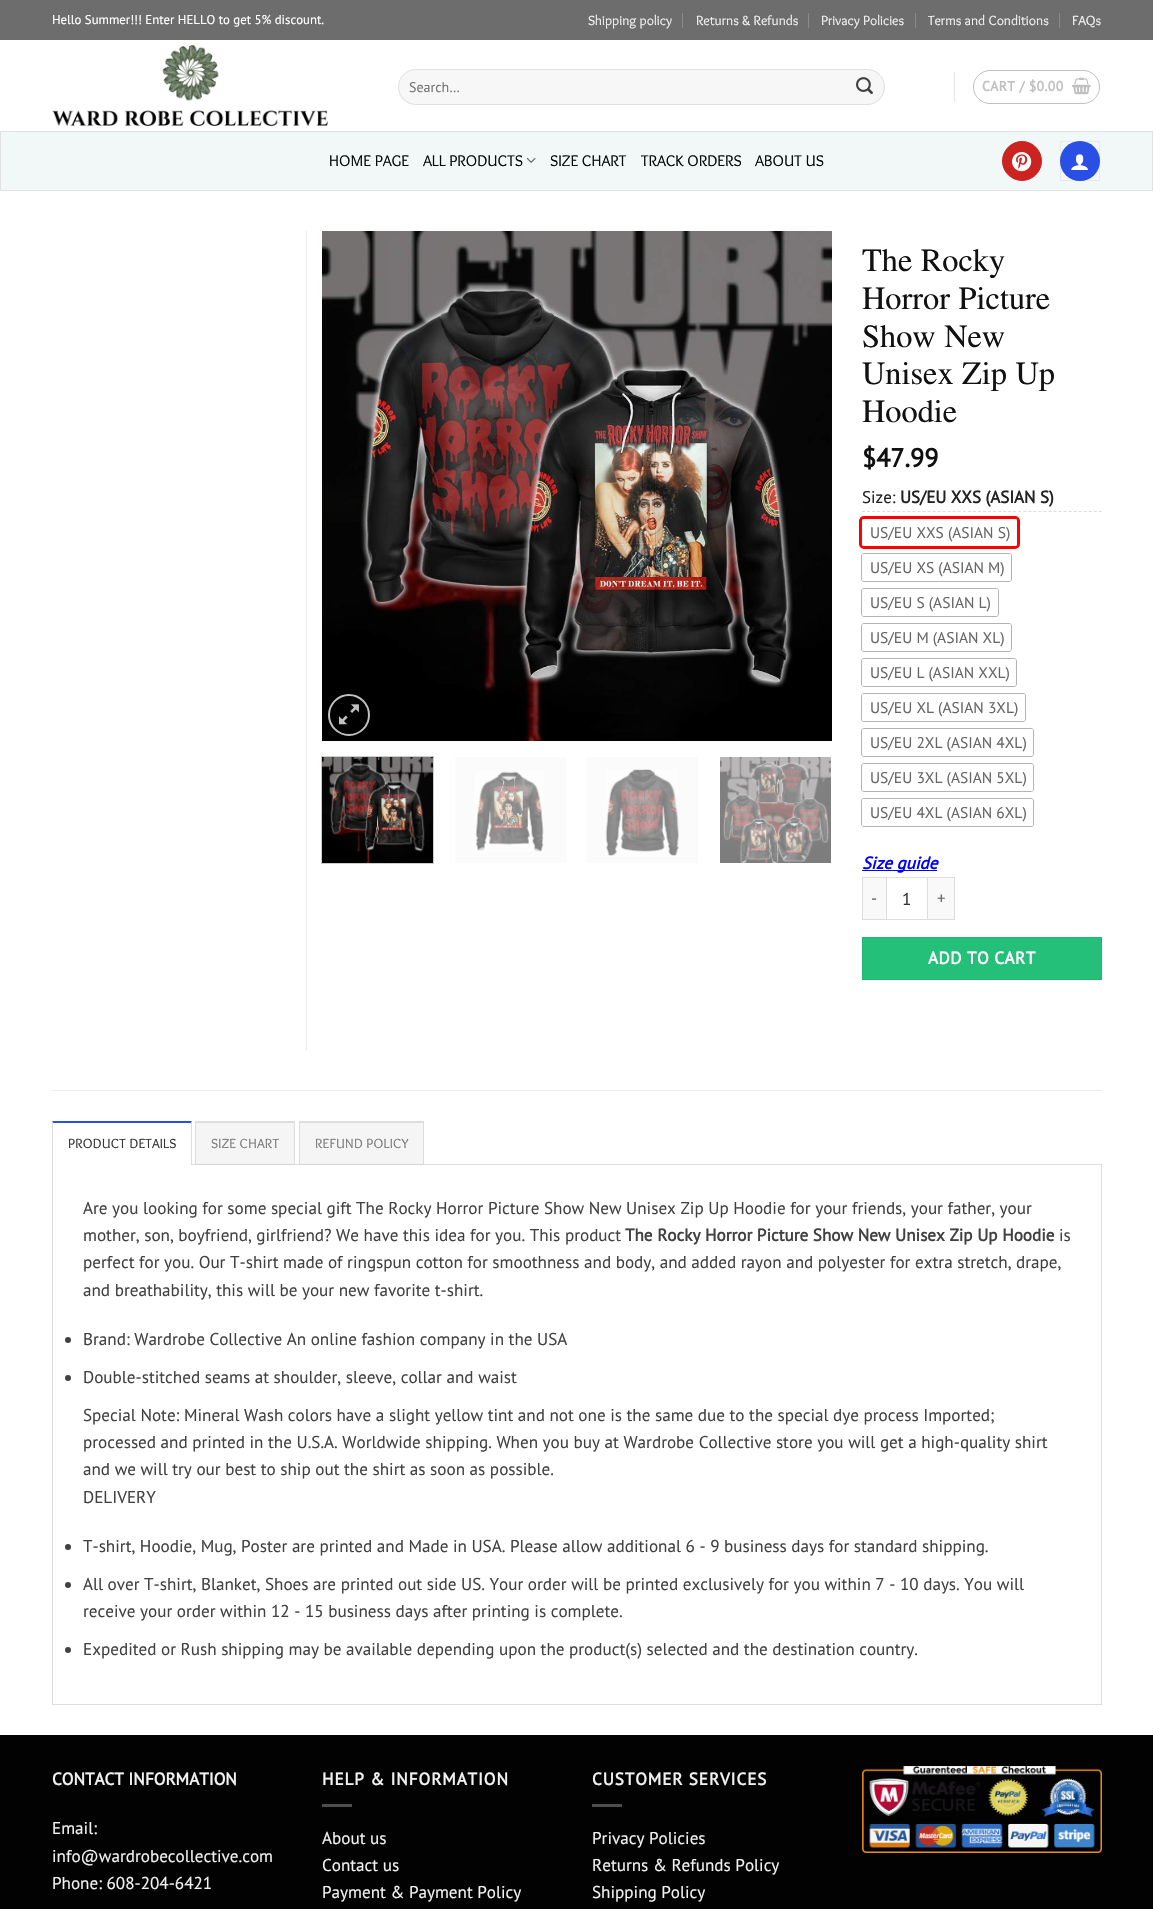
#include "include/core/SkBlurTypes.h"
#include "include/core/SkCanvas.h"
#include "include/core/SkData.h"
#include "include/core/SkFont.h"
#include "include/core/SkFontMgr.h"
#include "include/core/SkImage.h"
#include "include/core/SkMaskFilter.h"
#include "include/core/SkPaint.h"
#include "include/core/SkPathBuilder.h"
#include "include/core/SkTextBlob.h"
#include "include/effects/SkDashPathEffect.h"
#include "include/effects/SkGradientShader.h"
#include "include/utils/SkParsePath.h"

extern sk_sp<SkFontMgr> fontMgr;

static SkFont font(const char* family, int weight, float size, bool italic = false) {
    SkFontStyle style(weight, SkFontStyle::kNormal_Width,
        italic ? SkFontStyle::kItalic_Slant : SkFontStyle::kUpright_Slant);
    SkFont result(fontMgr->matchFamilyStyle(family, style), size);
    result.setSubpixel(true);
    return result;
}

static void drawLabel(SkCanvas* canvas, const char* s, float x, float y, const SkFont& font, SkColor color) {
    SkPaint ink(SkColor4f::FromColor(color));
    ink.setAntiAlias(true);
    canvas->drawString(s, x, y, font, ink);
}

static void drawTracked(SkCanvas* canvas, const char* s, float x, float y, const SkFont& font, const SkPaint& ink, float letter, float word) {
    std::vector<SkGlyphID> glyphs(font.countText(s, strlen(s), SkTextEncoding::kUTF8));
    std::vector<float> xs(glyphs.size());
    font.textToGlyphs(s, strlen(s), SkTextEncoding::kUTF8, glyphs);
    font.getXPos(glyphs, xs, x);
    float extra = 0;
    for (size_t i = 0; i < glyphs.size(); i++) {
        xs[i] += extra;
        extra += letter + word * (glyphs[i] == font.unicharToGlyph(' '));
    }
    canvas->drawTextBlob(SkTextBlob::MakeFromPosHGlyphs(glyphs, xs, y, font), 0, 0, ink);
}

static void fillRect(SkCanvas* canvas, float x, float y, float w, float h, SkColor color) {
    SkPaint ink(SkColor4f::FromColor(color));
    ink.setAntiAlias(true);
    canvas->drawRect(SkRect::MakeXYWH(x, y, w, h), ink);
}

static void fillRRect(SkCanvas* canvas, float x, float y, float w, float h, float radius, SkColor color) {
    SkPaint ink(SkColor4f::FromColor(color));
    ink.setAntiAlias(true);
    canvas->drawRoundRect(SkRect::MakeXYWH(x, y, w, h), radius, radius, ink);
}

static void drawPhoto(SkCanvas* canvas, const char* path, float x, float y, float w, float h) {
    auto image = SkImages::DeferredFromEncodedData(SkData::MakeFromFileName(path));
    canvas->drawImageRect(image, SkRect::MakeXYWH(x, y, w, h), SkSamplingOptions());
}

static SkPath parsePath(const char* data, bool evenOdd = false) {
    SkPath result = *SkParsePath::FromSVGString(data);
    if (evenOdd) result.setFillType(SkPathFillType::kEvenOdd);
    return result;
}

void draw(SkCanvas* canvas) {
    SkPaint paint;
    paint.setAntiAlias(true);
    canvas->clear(0xFFFFFFFF);
    fillRect(canvas, 0, 0, 1153, 40, 0xFF6D6D6D);
    SkFont font1 = font("PT Sans", 400, 12.8f);
    drawLabel(canvas, "Hello Summer!!! Enter HELLO to get 5% discount.", 52, 24, font1, 0xFFFFFFFF);
    SkFont font2 = font("Overlock", 400, 13.75f);
    drawLabel(canvas, "Shipping policy", 588, 25, font2, 0xFFF1F1F1);
    fillRect(canvas, 682, 13, 1, 15, 0xFF8A8A8A);
    drawLabel(canvas, "Returns & Refunds", 696, 25, font2, 0xFFF1F1F1);
    fillRect(canvas, 808, 13, 1, 15, 0xFF8A8A8A);
    drawLabel(canvas, "Privacy Policies", 821, 25, font2, 0xFFF1F1F1);
    fillRect(canvas, 915, 13, 1, 15, 0xFF8A8A8A);
    drawLabel(canvas, "Terms and Conditions", 928, 25, font2, 0xFFF1F1F1);
    fillRect(canvas, 1059, 13, 1, 15, 0xFF8A8A8A);
    drawLabel(canvas, "FAQs", 1072, 25, font2, 0xFFF1F1F1);
    drawPhoto(canvas, "assets/img1.png", 52, 45, 276, 81);
    fillRRect(canvas, 398, 69, 487, 36, 18, 0xFFF7F7F7);
    paint.setStroke(true);
    paint.setStrokeWidth(1);
    paint.setColor(0x17000000);
    canvas->drawRoundRect(SkRect::MakeXYWH(398.5f, 69.5f, 486, 35), 17.5f, 17.5f, paint);
    SkFont font3 = font("PT Sans", 400, 14);
    drawLabel(canvas, "Search…", 409, 92, font3, 0xFF757575);
    drawPhoto(canvas, "assets/img2.png", 856, 77, 17, 17);
    fillRect(canvas, 954, 72, 1, 30, 0xFFE6E6E6);
    paint.setColor(0xFFC0C0C0);
    canvas->drawRoundRect(SkRect::MakeXYWH(973.5f, 70.5f, 126, 33), 16.5f, 16.5f, paint);
    SkFont font4 = font("PT Sans", 700, 13.75f);
    paint.setStroke(false);
    drawTracked(canvas, "CART / $0.00", 982, 91, font4, paint, 0.4f, 0);
    drawPhoto(canvas, "assets/img3.png", 1072, 77, 19, 18);
    paint.setColor(0xFFF2F8F8);
    canvas->drawRect(SkRect::MakeXYWH(0.5f, 131.5f, 1152, 59), paint);
    paint.setStroke(true);
    paint.setColor(0xFFE1E1E1);
    canvas->drawRect(SkRect::MakeXYWH(0.5f, 131.5f, 1152, 59), paint);
    SkFont font5 = font("Overlock", 400, 16);
    drawLabel(canvas, "HOME PAGE", 329, 166, font5, 0xFF0A0A0A);
    drawLabel(canvas, "ALL PRODUCTS", 423, 166, font5, 0xFF0A0A0A);
    drawPhoto(canvas, "assets/img4.png", 526, 157, 10, 6);
    drawLabel(canvas, "SIZE CHART", 550, 166, font5, 0xFF0A0A0A);
    drawLabel(canvas, "TRACK ORDERS", 641, 166, font5, 0xFF0A0A0A);
    drawLabel(canvas, "ABOUT US", 755, 166, font5, 0xFF0A0A0A);
    paint.setStroke(false);
    paint.setColor(0xFFCB2320);
    canvas->drawCircle(1022, 161, 19.5f, paint);
    paint.setStroke(true);
    canvas->drawCircle(1022, 161, 19.5f, paint);
    drawPhoto(canvas, "assets/img5.png", 1012, 152, 20, 20);
    paint.setStroke(false);
    paint.setColor(0xFF294FE4);
    canvas->drawCircle(1080, 161, 20, paint);
    paint.setStroke(true);
    paint.setColor(0x0D000000);
    canvas->drawRect(SkRect::MakeXYWH(1060.5f, 141.5f, 39, 39), paint);
    drawPhoto(canvas, "assets/img6.png", 1071, 154, 17, 16);
    fillRect(canvas, 306, 231, 1, 819, 0xFFECECEC);
    drawPhoto(canvas, "assets/img7.png", 322, 231, 510, 510);
    paint.setStrokeWidth(2);
    paint.setColor(0xFFC0C0C0);
    canvas->drawCircle(349, 715, 20, paint);
    drawPhoto(canvas, "assets/img8.png", 339, 704, 20, 21);
    paint.setStrokeWidth(1);
    paint.setColor(0xFFCCCCCC);
    canvas->drawRect(SkRect::MakeXYWH(321.5f, 756.5f, 112, 107), paint);
    drawPhoto(canvas, "assets/img9.png", 322, 757, 111, 106);
    fillRect(canvas, 455, 757, 111, 106, 0xFFFBFBFB);
    drawPhoto(canvas, "assets/img10.png", 475, 771, 69, 81);
    fillRect(canvas, 587, 757, 111, 106, 0xFFFBFBFB);
    drawPhoto(canvas, "assets/img11.png", 605, 769, 74, 87);
    fillRect(canvas, 720, 757, 111, 106, 0xFFFBFBFB);
    drawPhoto(canvas, "assets/img12.png", 720, 757, 111, 106);
    SkFont font6 = font("Jomolhari", 400, 29);
    drawLabel(canvas, "The Rocky", 862, 271, font6, 0xFF111111);
    drawLabel(canvas, "Horror Picture", 862, 309, font6, 0xFF111111);
    drawLabel(canvas, "Show New", 862, 347, font6, 0xFF111111);
    drawLabel(canvas, "Unisex Zip Up", 862, 384, font6, 0xFF111111);
    drawLabel(canvas, "Hoodie", 862, 422, font6, 0xFF111111);
    SkFont font7 = font("PT Sans", 700, 26);
    drawLabel(canvas, "$47.99", 862, 467, font7, 0xFF111111);
    SkFont font8 = font("PT Sans", 400, 17);
    drawLabel(canvas, "Size:", 862, 503, font8, 0xFF222222);
    SkFont font9 = font("PT Sans", 700, 17);
    drawLabel(canvas, "US/EU XXS (ASIAN S)", 900, 503, font9, 0xFF222222);
    paint.setColor(0xFFDDDDDD);
    paint.setPathEffect(SkDashPathEffect::Make({{3, 2.04f}}, 0));
    canvas->drawPath(parsePath("M862 511.5H1102"), paint);
    paint.setPathEffect(nullptr);
    paint.setStrokeWidth(3);
    paint.setColor(0xFFFF0000);
    canvas->drawRoundRect(SkRect::MakeXYWH(860.5f, 517.5f, 158, 30), 3.5f, 3.5f, paint);
    fillRRect(canvas, 862, 519, 155, 27, 2, 0xFFFFFFFF);
    SkFont font10 = font("PT Sans", 400, 15.5f);
    drawLabel(canvas, "US/EU XXS (ASIAN S)", 870, 538, font10, 0xFF666666);
    paint.setStrokeWidth(1);
    paint.setColor(0xFFB3B3B3);
    canvas->drawRoundRect(SkRect::MakeXYWH(861.5f, 553.5f, 150, 28), 2.5f, 2.5f, paint);
    fillRRect(canvas, 862, 554, 149, 27, 2, 0xFFFFFFFF);
    drawLabel(canvas, "US/EU XS (ASIAN M)", 870, 573, font10, 0xFF666666);
    canvas->drawRoundRect(SkRect::MakeXYWH(861.5f, 588.5f, 137, 28), 2.5f, 2.5f, paint);
    fillRRect(canvas, 862, 589, 136, 27, 2, 0xFFFFFFFF);
    drawLabel(canvas, "US/EU S (ASIAN L)", 870, 608, font10, 0xFF666666);
    canvas->drawRoundRect(SkRect::MakeXYWH(861.5f, 623.5f, 150, 28), 2.5f, 2.5f, paint);
    fillRRect(canvas, 862, 624, 149, 27, 2, 0xFFFFFFFF);
    drawLabel(canvas, "US/EU M (ASIAN XL)", 870, 643, font10, 0xFF666666);
    canvas->drawRoundRect(SkRect::MakeXYWH(861.5f, 658.5f, 155, 28), 2.5f, 2.5f, paint);
    fillRRect(canvas, 862, 659, 154, 27, 2, 0xFFFFFFFF);
    drawLabel(canvas, "US/EU L (ASIAN XXL)", 870, 678, font10, 0xFF666666);
    canvas->drawRoundRect(SkRect::MakeXYWH(861.5f, 693.5f, 164, 28), 2.5f, 2.5f, paint);
    fillRRect(canvas, 862, 694, 163, 27, 2, 0xFFFFFFFF);
    drawLabel(canvas, "US/EU XL (ASIAN 3XL)", 870, 713, font10, 0xFF666666);
    canvas->drawRoundRect(SkRect::MakeXYWH(861.5f, 728.5f, 172, 28), 2.5f, 2.5f, paint);
    fillRRect(canvas, 862, 729, 171, 27, 2, 0xFFFFFFFF);
    drawLabel(canvas, "US/EU 2XL (ASIAN 4XL)", 870, 748, font10, 0xFF666666);
    canvas->drawRoundRect(SkRect::MakeXYWH(861.5f, 763.5f, 172, 28), 2.5f, 2.5f, paint);
    fillRRect(canvas, 862, 764, 171, 27, 2, 0xFFFFFFFF);
    drawLabel(canvas, "US/EU 3XL (ASIAN 5XL)", 870, 783, font10, 0xFF666666);
    canvas->drawRoundRect(SkRect::MakeXYWH(861.5f, 798.5f, 172, 28), 2.5f, 2.5f, paint);
    fillRRect(canvas, 862, 799, 171, 27, 2, 0xFFFFFFFF);
    drawLabel(canvas, "US/EU 4XL (ASIAN 6XL)", 870, 818, font10, 0xFF666666);
    fillRect(canvas, 862, 870, 75, 1, 0xFF0000FF);
    SkFont font11 = font("PT Sans", 700, 17.12f, true);
    drawLabel(canvas, "Size guide", 862, 869, font11, 0xFF0000FF);
    fillRect(canvas, 863, 878, 23, 41, 0xFFF9F9F9);
    fillRect(canvas, 862, 877, 24, 1, 0xFFDDDDDD);
    fillRect(canvas, 862, 919, 24, 1, 0xFFDDDDDD);
    fillRect(canvas, 862, 877, 1, 43, 0xFFDDDDDD);
    drawLabel(canvas, "-", 871, 904, font8, 0xFF666666);
    paint.setColor(0xFFDDDDDD);
    canvas->drawRect(SkRect::MakeXYWH(886.5f, 877.5f, 41, 42), paint);
    SkFont font12 = font("PT Sans", 400, 17.12f);
    drawLabel(canvas, "1", 902, 905, font12, 0xFF333333);
    fillRect(canvas, 928, 878, 26, 41, 0xFFF9F9F9);
    fillRect(canvas, 928, 877, 27, 1, 0xFFDDDDDD);
    fillRect(canvas, 954, 877, 1, 43, 0xFFDDDDDD);
    fillRect(canvas, 928, 919, 27, 1, 0xFFDDDDDD);
    drawLabel(canvas, "+", 937, 904, font8, 0xFF666666);
    paint.setStroke(false);
    paint.setColor(0xFF24C07A);
    canvas->drawRect(SkRect::MakeXYWH(862.5f, 937.5f, 239, 42), paint);
    paint.setStroke(true);
    paint.setColor(0xFF22B674);
    canvas->drawRect(SkRect::MakeXYWH(862.5f, 937.5f, 239, 42), paint);
    SkFont font13 = font("PT Sans", 700, 17.12f);
    paint.setStroke(false);
    paint.setColor(0xFFFFFFFF);
    drawTracked(canvas, "ADD TO CART", 928, 964, font13, paint, 0.5f, 0);
    fillRect(canvas, 52, 1090, 1050, 1, 0xFFECECEC);
    paint.setStroke(true);
    paint.setColor(0xFFDDDDDD);
    canvas->drawRect(SkRect::MakeXYWH(52.5f, 1164.5f, 1049, 540), paint);
    fillRect(canvas, 52, 1164, 140, 1, 0xFFFFFFFF);
    paint.setStroke(false);
    paint.setColor(0xFF294FE4);
    canvas->drawPath(parsePath("M52 1121H192L191 1123H53Z"), paint);
    paint.setColor(0xFFDDDDDD);
    canvas->drawPath(parsePath("M192 1121V1165H191V1123Z"), paint);
    canvas->drawPath(parsePath("M52 1165V1121L53 1123V1165Z"), paint);
    paint.setColor(0xFF333333);
    drawTracked(canvas, "PRODUCT DETAILS", 68, 1148, font2, paint, 0.25f, 0);
    fillRect(canvas, 196, 1123, 98, 42, 0x0A000000);
    fillRect(canvas, 195, 1121, 100, 2, 0xFFDDDDDD);
    fillRect(canvas, 294, 1121, 1, 44, 0xFFDDDDDD);
    fillRect(canvas, 195, 1121, 1, 44, 0xFFDDDDDD);
    paint.setColor(0xFF7B7B7B);
    drawTracked(canvas, "SIZE CHART", 211, 1148, font2, paint, 0.25f, 0);
    fillRect(canvas, 300, 1123, 123, 42, 0x0A000000);
    fillRect(canvas, 299, 1121, 125, 2, 0xFFDDDDDD);
    fillRect(canvas, 423, 1121, 1, 44, 0xFFDDDDDD);
    fillRect(canvas, 299, 1121, 1, 44, 0xFFDDDDDD);
    drawTracked(canvas, "REFUND POLICY", 315, 1148, font2, paint, 0.25f, 0);
    drawLabel(canvas, "Are you looking for some special gift The Rocky Horror Picture Show New Unisex Zip Up Hoodie for your friends, your father, your", 83, 1214, font12, 0xFF414141);
    drawLabel(canvas, "mother, son, boyfriend, girlfriend? We have this idea for you. This product", 83, 1241, font12, 0xFF414141);
    drawLabel(canvas, "The Rocky Horror Picture Show New Unisex Zip Up Hoodie", 625, 1241, font13, 0xFF414141);
    drawLabel(canvas, "is", 1059, 1241, font12, 0xFF414141);
    drawLabel(canvas, "perfect for you. Our T-shirt made of ringspun cotton for smoothness and body, and added rayon and polyester for extra stretch, drape,", 83, 1268, font12, 0xFF414141);
    drawLabel(canvas, "and breathability, this will be your new favorite t-shirt.", 83, 1296, font12, 0xFF414141);
    paint.setColor(0xFF414141);
    canvas->drawCircle(68, 1340, 3, paint);
    drawLabel(canvas, "Brand: Wardrobe Collective An online fashion company in the USA", 83, 1345, font12, 0xFF414141);
    canvas->drawCircle(68, 1378, 3, paint);
    drawLabel(canvas, "Double-stitched seams at shoulder, sleeve, collar and waist", 83, 1383, font12, 0xFF414141);
    drawLabel(canvas, "Special Note: Mineral Wash colors have a slight yellow tint and not one is the same due to the special dye process Imported;", 83, 1421, font12, 0xFF414141);
    drawLabel(canvas, "processed and printed in the U.S.A. Worldwide shipping. When you buy at Wardrobe Collective store you will get a high-quality shirt", 83, 1448, font12, 0xFF414141);
    drawLabel(canvas, "and we will try our best to ship out the shirt as soon as possible.", 83, 1475, font12, 0xFF414141);
    drawLabel(canvas, "DELIVERY", 83, 1503, font12, 0xFF414141);
    canvas->drawCircle(68, 1547, 3, paint);
    drawLabel(canvas, "T-shirt, Hoodie, Mug, Poster are printed and Made in USA. Please allow additional 6 - 9 business days for standard shipping.", 83, 1552, font12, 0xFF414141);
    canvas->drawCircle(68, 1585, 3, paint);
    drawLabel(canvas, "All over T-shirt, Blanket, Shoes are printed out side US. Your order will be printed exclusively for you within 7 - 10 days. You will", 83, 1590, font12, 0xFF414141);
    drawLabel(canvas, "receive your order within 12 - 15 business days after printing is complete.", 83, 1617, font12, 0xFF414141);
    canvas->drawCircle(68, 1650, 3, paint);
    drawLabel(canvas, "Expedited or Rush shipping may be available depending upon the product(s) selected and the destination country.", 83, 1655, font12, 0xFF414141);
    fillRect(canvas, 0, 1735, 1153, 174, 0xFF020202);
    drawLabel(canvas, "CONTACT INFORMATION", 52, 1785, font13, 0xFFF1F1F1);
    drawLabel(canvas, "Email:", 52, 1834, font12, 0xFFF1F1F1);
    drawLabel(canvas, "info@wardrobecollective.com", 52, 1862, font12, 0xFFF1F1F1);
    drawLabel(canvas, "Phone: 608-204-6421", 52, 1889, font12, 0xFFF1F1F1);
    paint.setColor(0xFFF1F1F1);
    drawTracked(canvas, "HELP & INFORMATION", 322, 1785, font13, paint, 0.9f, 0);
    fillRect(canvas, 322, 1804, 30, 3, 0xFF4E4E4E);
    drawLabel(canvas, "About us", 322, 1844, font12, 0xFFF1F1F1);
    drawLabel(canvas, "Contact us", 322, 1871, font12, 0xFFF1F1F1);
    drawLabel(canvas, "Payment & Payment Policy", 322, 1898, font12, 0xFFF1F1F1);
    drawTracked(canvas, "CUSTOMER SERVICES", 592, 1785, font13, paint, 0.9f, 0);
    fillRect(canvas, 592, 1804, 30, 3, 0xFF4E4E4E);
    drawLabel(canvas, "Privacy Policies", 592, 1844, font12, 0xFFF1F1F1);
    drawLabel(canvas, "Returns & Refunds Policy", 592, 1871, font12, 0xFFF1F1F1);
    drawLabel(canvas, "Shipping Policy", 592, 1898, font12, 0xFFF1F1F1);
    drawPhoto(canvas, "assets/img13.png", 862, 1766, 240, 87);
}
